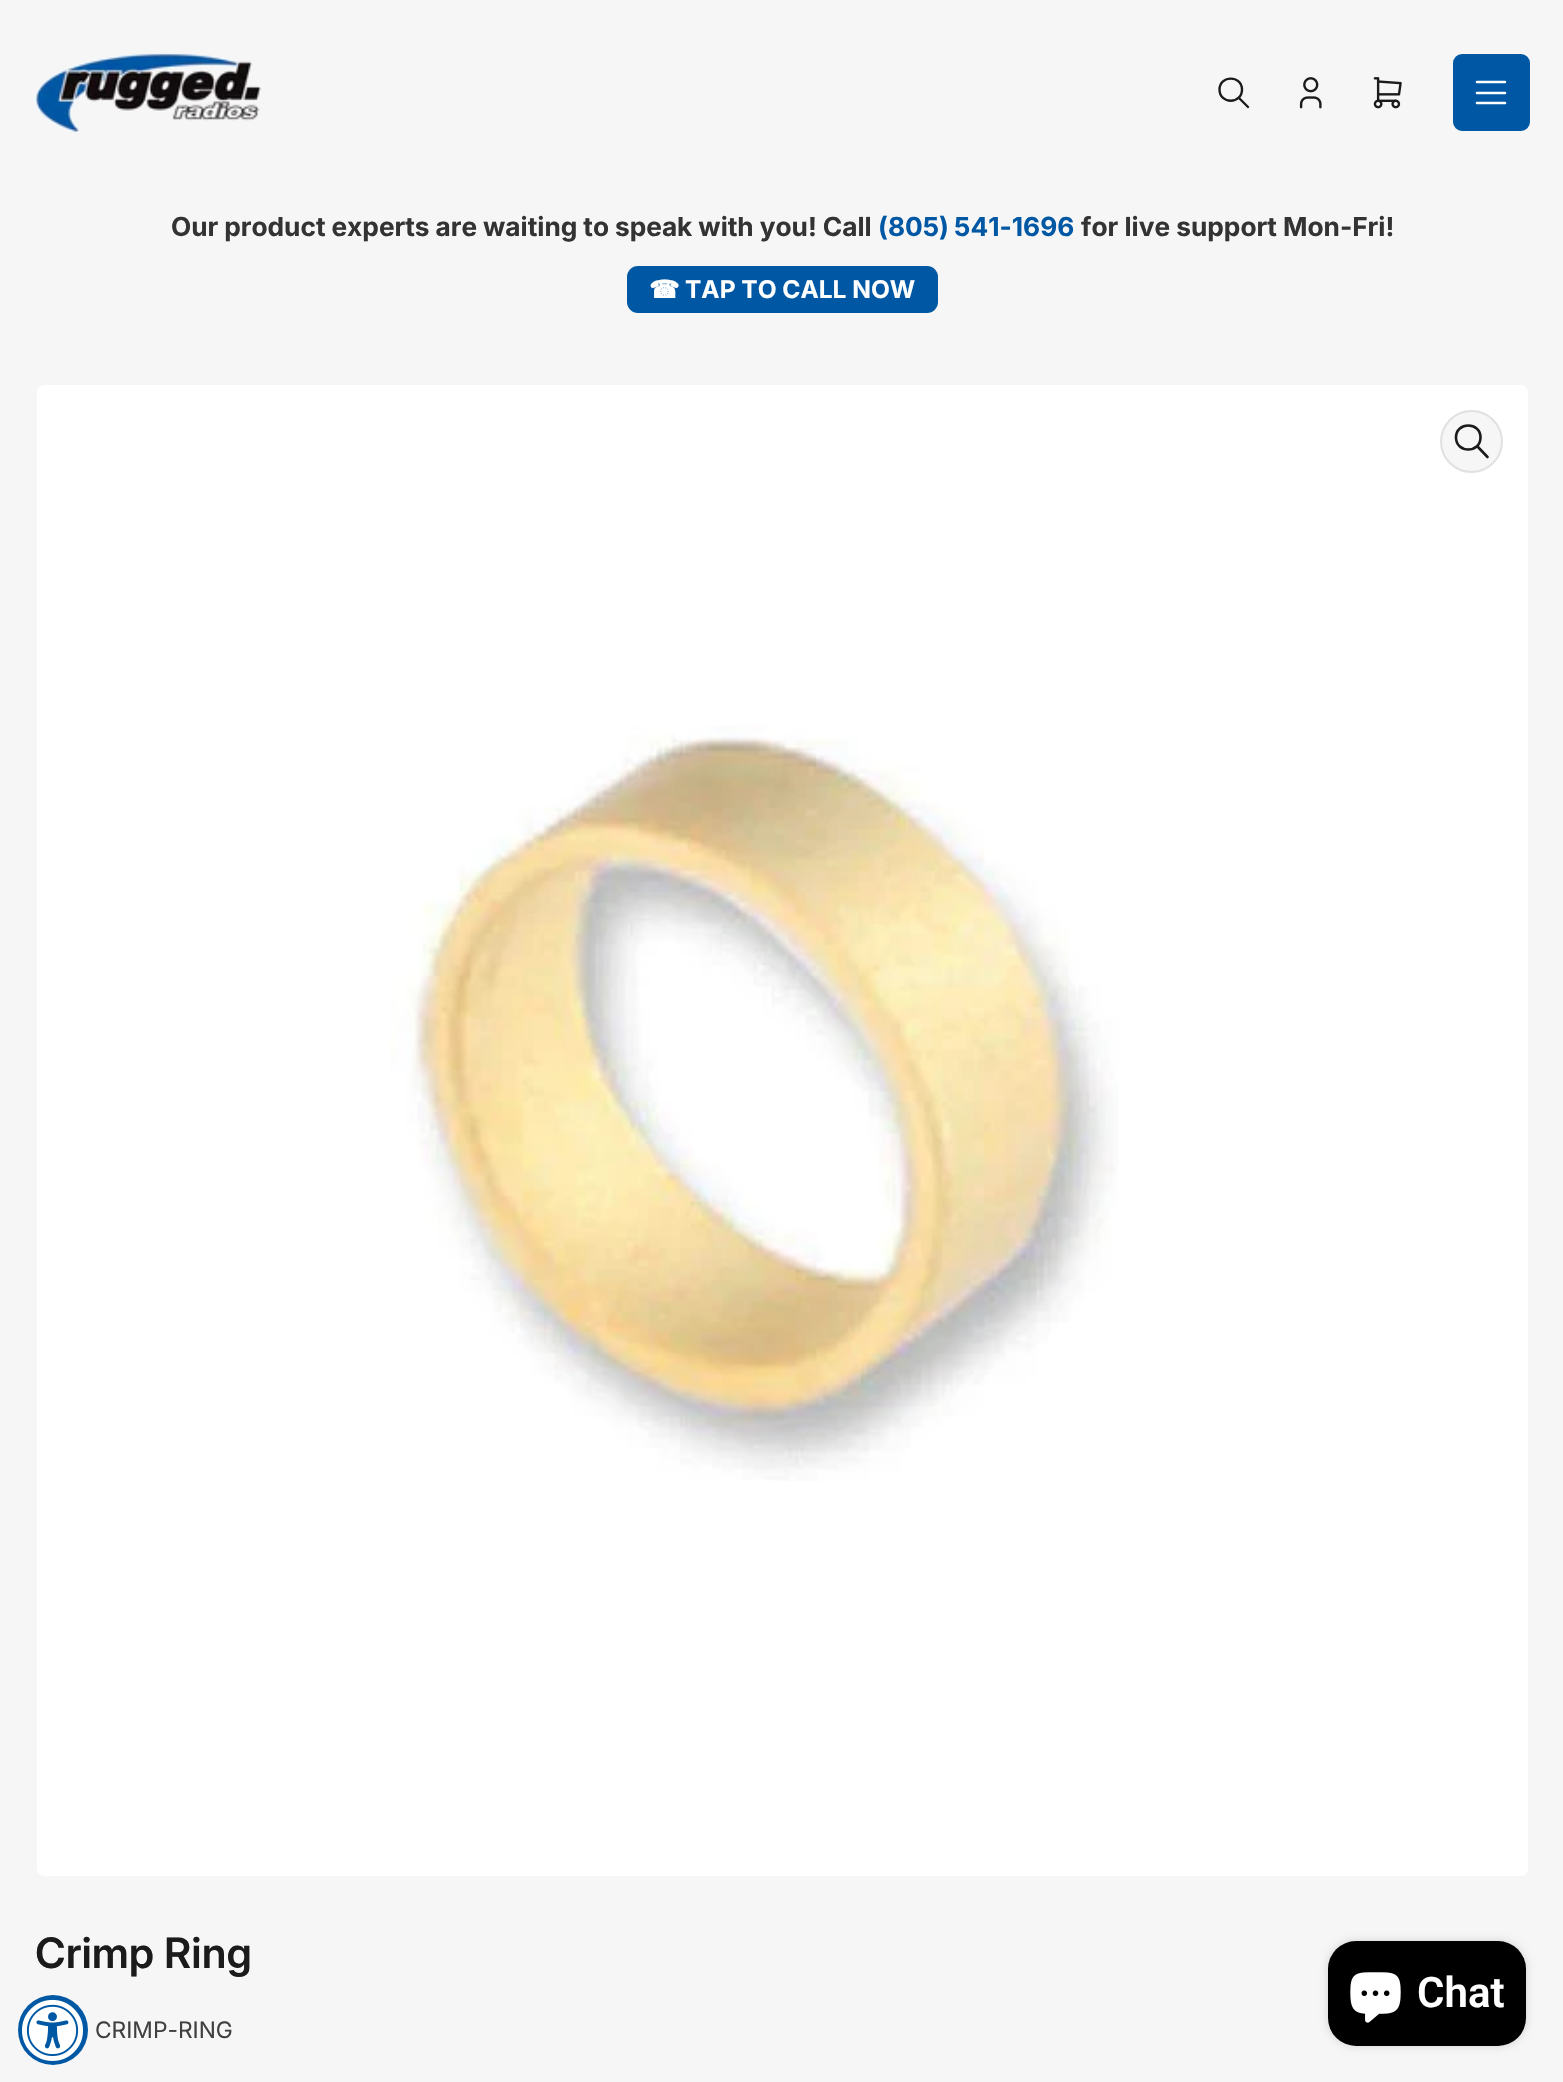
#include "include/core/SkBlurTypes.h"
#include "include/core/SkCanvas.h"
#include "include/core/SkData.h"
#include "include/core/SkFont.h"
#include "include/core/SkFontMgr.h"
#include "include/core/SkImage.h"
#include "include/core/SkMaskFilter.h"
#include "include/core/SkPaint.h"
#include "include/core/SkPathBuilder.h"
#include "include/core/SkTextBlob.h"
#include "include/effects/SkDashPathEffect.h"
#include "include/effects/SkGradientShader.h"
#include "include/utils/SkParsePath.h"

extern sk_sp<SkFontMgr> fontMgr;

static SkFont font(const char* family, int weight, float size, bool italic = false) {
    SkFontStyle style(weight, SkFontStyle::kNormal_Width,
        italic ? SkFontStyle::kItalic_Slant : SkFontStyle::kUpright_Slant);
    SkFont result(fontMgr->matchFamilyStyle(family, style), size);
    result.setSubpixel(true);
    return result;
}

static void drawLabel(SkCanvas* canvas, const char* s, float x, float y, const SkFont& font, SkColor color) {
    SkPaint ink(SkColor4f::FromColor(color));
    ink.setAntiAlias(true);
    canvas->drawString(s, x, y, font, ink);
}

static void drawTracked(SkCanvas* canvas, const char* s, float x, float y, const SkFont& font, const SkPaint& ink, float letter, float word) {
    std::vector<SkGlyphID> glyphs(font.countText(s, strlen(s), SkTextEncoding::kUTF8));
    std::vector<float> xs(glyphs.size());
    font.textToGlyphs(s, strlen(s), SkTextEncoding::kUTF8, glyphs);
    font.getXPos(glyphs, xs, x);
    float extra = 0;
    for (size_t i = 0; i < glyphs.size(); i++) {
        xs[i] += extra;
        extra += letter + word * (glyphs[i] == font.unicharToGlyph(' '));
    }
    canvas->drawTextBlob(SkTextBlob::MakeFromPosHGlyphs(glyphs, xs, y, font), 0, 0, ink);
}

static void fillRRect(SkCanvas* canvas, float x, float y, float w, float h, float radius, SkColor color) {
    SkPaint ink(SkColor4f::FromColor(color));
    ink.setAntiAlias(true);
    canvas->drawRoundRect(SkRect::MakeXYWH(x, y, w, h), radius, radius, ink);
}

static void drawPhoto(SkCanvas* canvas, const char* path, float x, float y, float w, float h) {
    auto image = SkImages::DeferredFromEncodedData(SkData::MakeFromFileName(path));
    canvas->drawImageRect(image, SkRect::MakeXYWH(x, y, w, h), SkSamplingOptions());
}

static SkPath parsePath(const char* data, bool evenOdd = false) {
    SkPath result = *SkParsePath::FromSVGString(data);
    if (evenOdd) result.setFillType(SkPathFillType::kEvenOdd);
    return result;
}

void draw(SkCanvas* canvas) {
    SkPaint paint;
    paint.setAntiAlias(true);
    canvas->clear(0xFFF6F6F6);
    drawPhoto(canvas, "assets/img1.png", 35, 53, 227, 80);
    paint.setStroke(true);
    paint.setStrokeWidth(2.4f);
    paint.setStrokeCap(SkPaint::kRound_Cap);
    paint.setStrokeJoin(SkPaint::kRound_Join);
    paint.setColor(0xFF1B1B1B);
    canvas->drawPath(parsePath("M1219.5 89.5C1219.5 104.5 1242 104.5 1242 89.5C1242 75 1219.5 75 1219.5 89.5M1248 107L1238.5 97.5"), paint);
    drawPhoto(canvas, "assets/img2.png", 1299, 77, 23, 32);
    drawPhoto(canvas, "assets/img3.png", 1373, 77, 29, 32);
    paint.setStroke(false);
    paint.setColor(0xFF0058A4);
    canvas->drawRoundRect(SkRect::MakeXYWH(1454, 55, 75, 75), 8, 8, paint);
    paint.setStroke(true);
    paint.setStrokeWidth(2);
    paint.setStrokeCap(SkPaint::kButt_Cap);
    paint.setStrokeJoin(SkPaint::kMiter_Join);
    canvas->drawRoundRect(SkRect::MakeXYWH(1454, 55, 75, 75), 8, 8, paint);
    paint.setStrokeWidth(2.6f);
    paint.setStrokeCap(SkPaint::kRound_Cap);
    paint.setStrokeJoin(SkPaint::kRound_Join);
    paint.setColor(0xFFFFFFFF);
    canvas->drawPath(parsePath("M1477 82H1505M1477 93H1505M1477 103H1505"), paint);
    SkFont font1 = font("Inter", 700, 26.25f);
    paint.setStroke(false);
    paint.setColor(0xFF333333);
    drawTracked(canvas, "Our product experts are waiting to speak with you! Call", 171, 236, font1, paint, 0, -0.25f);
    paint.setColor(0xFF0058A4);
    drawTracked(canvas, "(805) 541-1696", 878, 236, font1, paint, 0, -1);
    drawLabel(canvas, "for live support Mon-Fri!", 1081, 236, font1, 0xFF333333);
    fillRRect(canvas, 627, 266, 311, 47, 11, 0xFF0058A4);
    SkFont font2 = font("DejaVu Sans", 700, 24.5f);
    drawLabel(canvas, "☎", 649, 298, font2, 0xFFFFFFFF);
    SkFont font3 = font("Inter", 700, 24.5f);
    drawLabel(canvas, "TAP TO CALL NOW", 685, 298, font3, 0xFFFFFFFF);
    paint.setColor(0xFFFFFFFF);
    canvas->drawRoundRect(SkRect::MakeXYWH(36, 384, 1493, 1493), 8, 8, paint);
    paint.setStroke(true);
    paint.setStrokeWidth(2);
    paint.setStrokeCap(SkPaint::kButt_Cap);
    paint.setStrokeJoin(SkPaint::kMiter_Join);
    paint.setColor(0xFFF6F6F6);
    canvas->drawRoundRect(SkRect::MakeXYWH(36, 384, 1493, 1493), 8, 8, paint);
    paint.setStroke(false);
    canvas->drawCircle(1471.5f, 441.5f, 30.5f, paint);
    paint.setStroke(true);
    paint.setColor(0xFFE1E1E1);
    canvas->drawCircle(1471.5f, 441.5f, 30.5f, paint);
    paint.setStrokeWidth(2.6f);
    paint.setStrokeCap(SkPaint::kRound_Cap);
    paint.setStrokeJoin(SkPaint::kRound_Join);
    paint.setColor(0xFF1B1B1B);
    canvas->drawPath(parsePath("M1456 437.5C1456 453.5 1480.5 453.5 1480.5 437.5C1480.5 421.5 1456 421.5 1456 437.5M1487.5 457L1477 446"), paint);
    drawPhoto(canvas, "assets/img4.png", 390, 725, 729, 756);
    SkFont font4 = font("Inter", 600, 42);
    drawLabel(canvas, "Crimp Ring", 35, 1968, font4, 0xFF1B1B1B);
    SkFont font5 = font("Inter", 400, 22.75f);
    drawLabel(canvas, "CRIMP-RING", 95, 2038, font5, 0xFF404040);
    paint.setStroke(false);
    paint.setColor(0x26000000);
    paint.setMaskFilter(SkMaskFilter::MakeBlur(kNormal_SkBlurStyle, 4.5f));
    canvas->drawRoundRect(SkRect::MakeXYWH(1328, 1941, 198, 105), 28, 28, paint);
    paint.setMaskFilter(nullptr);
    fillRRect(canvas, 1328, 1941, 198, 105, 28, 0xFF000000);
    drawPhoto(canvas, "assets/img5.png", 1350, 1972, 51, 51);
    SkFont font6 = font("Roboto", 600, 42);
    drawLabel(canvas, "Chat", 1417, 2007, font6, 0xFFFFFFFF);
    paint.setColor(0xFF0058A4);
    canvas->drawCircle(53, 2030, 35, paint);
    drawPhoto(canvas, "assets/img6.png", 22, 1999, 61, 62);
}
